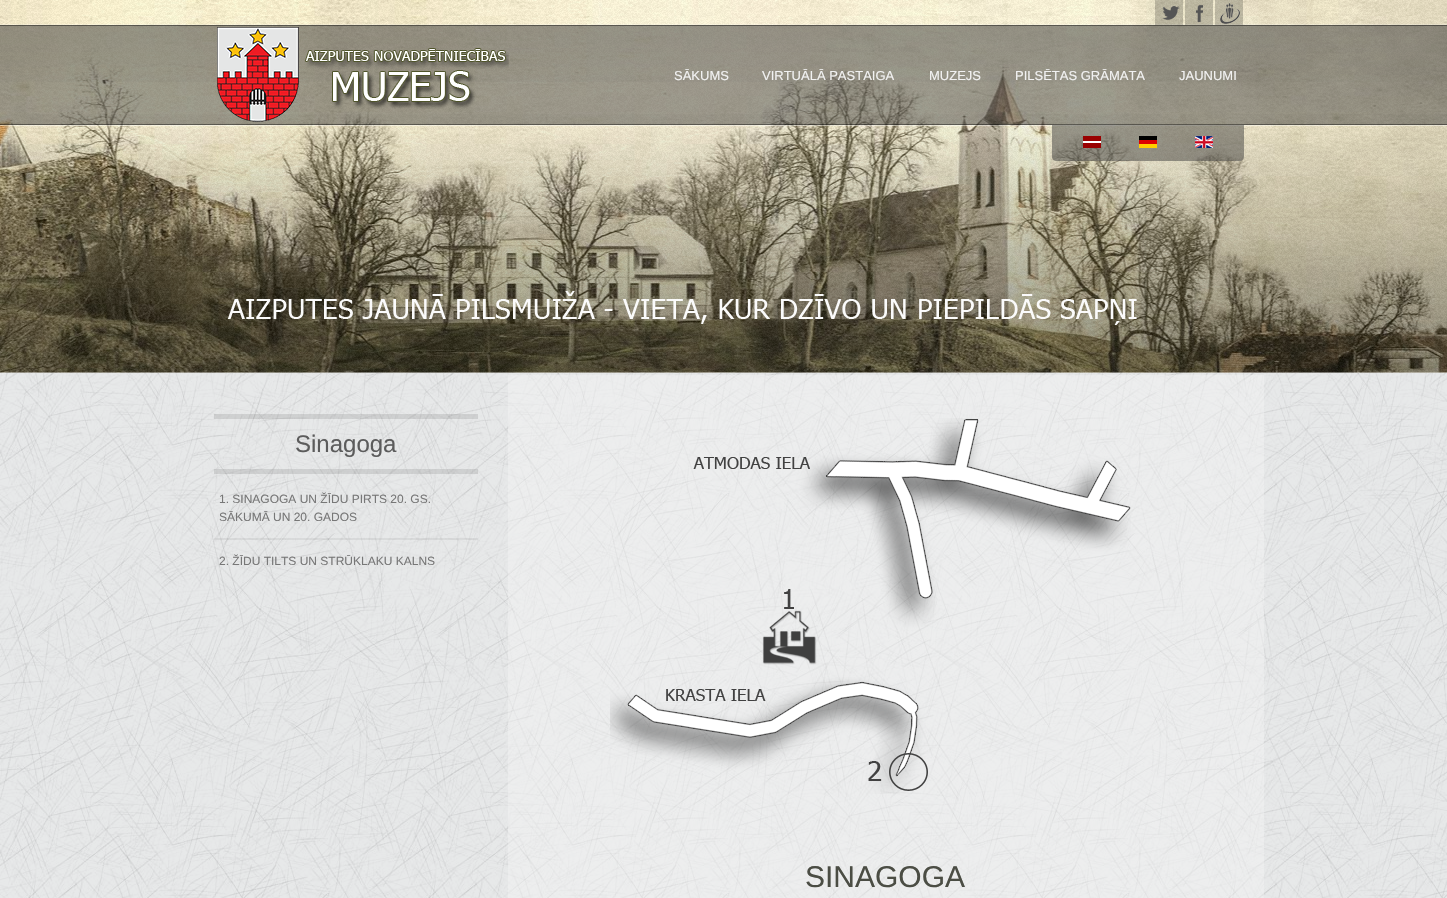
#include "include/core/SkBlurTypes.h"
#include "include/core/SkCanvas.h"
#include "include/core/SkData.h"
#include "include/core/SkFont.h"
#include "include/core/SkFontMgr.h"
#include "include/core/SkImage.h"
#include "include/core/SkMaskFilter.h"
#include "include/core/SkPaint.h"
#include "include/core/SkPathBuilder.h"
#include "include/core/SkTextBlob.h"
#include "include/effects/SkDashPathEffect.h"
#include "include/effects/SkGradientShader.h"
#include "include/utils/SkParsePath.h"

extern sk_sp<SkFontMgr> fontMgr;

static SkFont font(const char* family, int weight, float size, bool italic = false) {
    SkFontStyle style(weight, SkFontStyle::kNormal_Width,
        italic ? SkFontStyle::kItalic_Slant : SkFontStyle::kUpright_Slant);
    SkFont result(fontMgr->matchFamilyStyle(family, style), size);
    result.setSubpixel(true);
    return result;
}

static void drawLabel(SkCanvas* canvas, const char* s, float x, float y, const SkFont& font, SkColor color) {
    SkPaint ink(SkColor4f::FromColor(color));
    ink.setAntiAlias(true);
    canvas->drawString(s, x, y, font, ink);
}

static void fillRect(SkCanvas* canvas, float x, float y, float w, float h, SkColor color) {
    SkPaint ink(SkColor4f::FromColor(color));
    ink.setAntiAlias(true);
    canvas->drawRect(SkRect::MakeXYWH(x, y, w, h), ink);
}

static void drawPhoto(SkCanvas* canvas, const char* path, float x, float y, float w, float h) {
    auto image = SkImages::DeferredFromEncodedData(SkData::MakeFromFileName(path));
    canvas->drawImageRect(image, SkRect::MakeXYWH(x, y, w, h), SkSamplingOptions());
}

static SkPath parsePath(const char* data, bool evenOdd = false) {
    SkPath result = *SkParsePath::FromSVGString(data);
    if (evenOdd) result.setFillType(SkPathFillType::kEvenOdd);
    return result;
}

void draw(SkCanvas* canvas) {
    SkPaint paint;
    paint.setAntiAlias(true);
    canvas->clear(0xFFFFFFFF);
    drawPhoto(canvas, "assets/img1.png", 0, 0, 1447, 373);
    {
        const SkColor colors[] = {0x00000000, 0x99000000, 0xFFFFFFFF, 0xE6A5A5A5, 0xE6EBEBEB};
        const float stops[] = {0.07f, 0.32f, 0.32f, 0.32f, 0.42f};
        const SkPoint ends[] = {{723, 0}, {724, 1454}};
        paint.setShader(SkGradientShader::MakeLinear(ends, colors, stops, 5, SkTileMode::kClamp));
        paint.setAlpha(255);
    }
    canvas->drawRect(SkRect::MakeXYWH(0, 114, 1447, 259), paint);
    drawPhoto(canvas, "assets/img2.png", 0, 0, 1447, 373);
    fillRect(canvas, 0, 24, 1447, 1, 0x33FFFFFF);
    fillRect(canvas, 1155, 0, 28, 25, 0x33000000);
    drawPhoto(canvas, "assets/img3.png", 1162, 6, 18, 14);
    fillRect(canvas, 1185, 0, 28, 25, 0x33000000);
    drawPhoto(canvas, "assets/img4.png", 1196, 5, 7, 17);
    fillRect(canvas, 1215, 0, 28, 25, 0x33000000);
    drawPhoto(canvas, "assets/img5.png", 1220, 3, 20, 21);
    fillRect(canvas, 0, 25, 1447, 100, 0x80404040);
    {
        const SkColor colors[] = {0x00000000, 0x0D000000};
        const float stops[] = {0, 1};
        const SkPoint ends[] = {{724, 125}, {724, 25}};
        paint.setShader(SkGradientShader::MakeLinear(ends, colors, stops, 2, SkTileMode::kClamp));
        paint.setAlpha(255);
    }
    canvas->drawRect(SkRect::MakeXYWH(0, 25, 1447, 57), paint);
    drawPhoto(canvas, "assets/img6.png", 217, 27, 292, 95);
    fillRect(canvas, 0, 125, 1447, 1, 0x66FFFFFF);
    paint.setShader(nullptr);
    paint.setColor(0x80404040);
    canvas->drawPath(parsePath("M1052 125H1244V157C1244 159 1242 161 1240 161H1056C1054 161 1052 159 1052 157Z"), paint);
    drawPhoto(canvas, "assets/img7.png", 1083, 136, 18, 12);
    drawPhoto(canvas, "assets/img8.png", 1139, 136, 18, 12);
    drawPhoto(canvas, "assets/img9.png", 1195, 136, 18, 12);
    fillRect(canvas, 0, 25, 1447, 1, 0x66000000);
    fillRect(canvas, 0, 124, 1447, 1, 0x66000000);
    SkFont font1 = font("Liberation Sans", 400, 13);
    drawLabel(canvas, "SĀKUMS", 674, 80, font1, 0xFFF2F2F2);
    drawLabel(canvas, "VIRTUĀLĀ PASTAIGA", 762, 80, font1, 0xFFF2F2F2);
    drawLabel(canvas, "MUZEJS", 929, 80, font1, 0xFFF2F2F2);
    drawLabel(canvas, "PILSĒTAS GRĀMATA", 1015, 80, font1, 0xFFF2F2F2);
    drawLabel(canvas, "JAUNUMI", 1179, 80, font1, 0xFFF2F2F2);
    drawPhoto(canvas, "assets/img10.png", 227, 291, 910, 34);
    fillRect(canvas, 0, 372, 1447, 1, 0x66FFFFFF);
    drawPhoto(canvas, "assets/img11.png", 0, 373, 1447, 525);
    fillRect(canvas, 214, 414, 264, 5, 0x1A000000);
    fillRect(canvas, 214, 469, 264, 5, 0x1A000000);
    SkFont font2 = font("Liberation Sans", 400, 24);
    drawLabel(canvas, "Sinagoga", 295, 452, font2, 0xFF5C5C5C);
    fillRect(canvas, 214, 538, 264, 2, 0x0F000000);
    SkFont font3 = font("Liberation Sans", 400, 12);
    drawLabel(canvas, "1. SINAGOGA UN ŽĪDU PIRTS 20. GS.", 219, 503, font3, 0xFF777777);
    drawLabel(canvas, "SĀKUMĀ UN 20. GADOS", 219, 521, font3, 0xFF777777);
    drawLabel(canvas, "2. ŽĪDU TILTS UN STRŪKLAKU KALNS", 219, 565, font3, 0xFF777777);
    fillRect(canvas, 508, 375, 756, 523, 0x66F5F4F6);
    drawPhoto(canvas, "assets/img12.png", 610, 418, 521, 376);
    SkFont font4 = font("Liberation Sans", 400, 30);
    drawLabel(canvas, "SINAGOGA", 805, 887, font4, 0xFF4B4D44);
}
